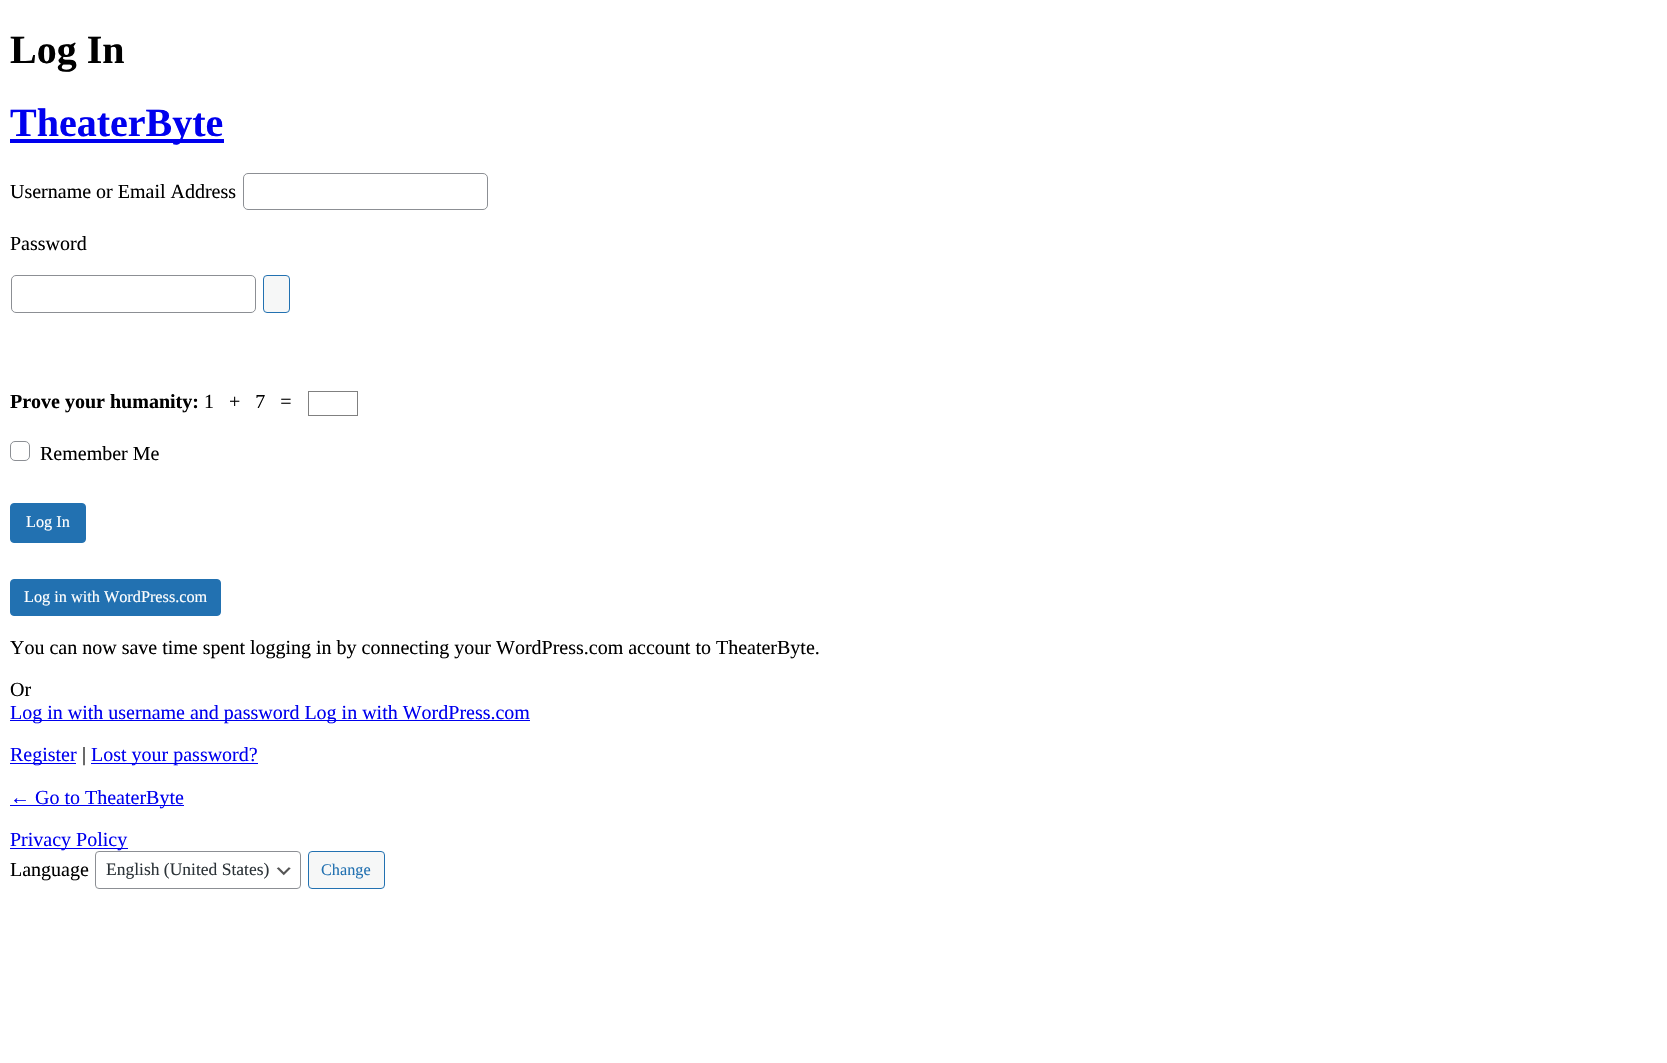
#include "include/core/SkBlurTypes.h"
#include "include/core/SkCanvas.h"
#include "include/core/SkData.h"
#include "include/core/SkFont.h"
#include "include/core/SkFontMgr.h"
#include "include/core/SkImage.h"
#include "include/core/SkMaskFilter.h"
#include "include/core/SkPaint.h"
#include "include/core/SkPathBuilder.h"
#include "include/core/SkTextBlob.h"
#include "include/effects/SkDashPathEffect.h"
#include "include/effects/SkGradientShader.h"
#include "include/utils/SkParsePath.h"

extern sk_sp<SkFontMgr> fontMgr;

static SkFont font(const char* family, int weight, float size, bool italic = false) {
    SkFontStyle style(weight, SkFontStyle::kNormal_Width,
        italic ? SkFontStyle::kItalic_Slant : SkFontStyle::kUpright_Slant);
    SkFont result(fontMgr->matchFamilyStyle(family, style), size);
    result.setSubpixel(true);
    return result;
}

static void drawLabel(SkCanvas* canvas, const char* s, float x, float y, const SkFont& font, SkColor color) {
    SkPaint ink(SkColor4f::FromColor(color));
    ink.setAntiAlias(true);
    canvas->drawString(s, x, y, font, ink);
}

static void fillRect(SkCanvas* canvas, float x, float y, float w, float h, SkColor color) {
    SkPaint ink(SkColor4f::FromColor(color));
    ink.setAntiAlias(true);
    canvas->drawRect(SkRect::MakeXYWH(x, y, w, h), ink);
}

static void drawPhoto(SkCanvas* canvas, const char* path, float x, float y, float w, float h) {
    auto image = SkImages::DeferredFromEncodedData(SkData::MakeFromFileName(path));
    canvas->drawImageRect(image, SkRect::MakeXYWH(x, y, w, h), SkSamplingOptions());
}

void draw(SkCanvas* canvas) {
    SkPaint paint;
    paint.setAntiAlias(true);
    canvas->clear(0xFFFFFFFF);
    SkFont font1 = font("Liberation Serif", 700, 40);
    drawLabel(canvas, "Log In", 10, 63, font1, 0xFF000000);
    fillRect(canvas, 10, 139, 214, 4, 0xFF0000EE);
    drawLabel(canvas, "TheaterByte", 10, 136, font1, 0xFF0000EE);
    SkFont font2 = font("Liberation Serif", 400, 20);
    drawLabel(canvas, "Username or Email Address", 10, 198, font2, 0xFF000000);
    paint.setStroke(true);
    paint.setStrokeWidth(1);
    paint.setColor(0xFF8C8F94);
    canvas->drawRoundRect(SkRect::MakeXYWH(243.5f, 173.5f, 244, 36), 4.5f, 4.5f, paint);
    drawLabel(canvas, "Password", 10, 250, font2, 0xFF000000);
    canvas->drawRoundRect(SkRect::MakeXYWH(11.5f, 275.5f, 244, 37), 4.5f, 4.5f, paint);
    paint.setStroke(false);
    paint.setColor(0xFFF6F7F7);
    canvas->drawRoundRect(SkRect::MakeXYWH(263.5f, 275.5f, 26, 37), 3.5f, 3.5f, paint);
    paint.setStroke(true);
    paint.setColor(0xFF2271B1);
    canvas->drawRoundRect(SkRect::MakeXYWH(263.5f, 275.5f, 26, 37), 3.5f, 3.5f, paint);
    SkFont font3 = font("Liberation Serif", 700, 20);
    drawLabel(canvas, "Prove your humanity:", 10, 408, font3, 0xFF000000);
    drawLabel(canvas, "1   +   7   =", 204, 408, font2, 0xFF000000);
    paint.setColor(0xFF808080);
    canvas->drawRect(SkRect::MakeXYWH(308.5f, 391.5f, 49, 24), paint);
    paint.setColor(0xFF8C8F94);
    canvas->drawRoundRect(SkRect::MakeXYWH(10.5f, 441.5f, 19, 19), 4.5f, 4.5f, paint);
    drawLabel(canvas, "Remember Me", 40, 460, font2, 0xFF000000);
    paint.setStroke(false);
    paint.setColor(0xFF2271B1);
    canvas->drawRoundRect(SkRect::MakeXYWH(10.5f, 503.5f, 75, 39), 3.5f, 3.5f, paint);
    paint.setStroke(true);
    canvas->drawRoundRect(SkRect::MakeXYWH(10.5f, 503.5f, 75, 39), 3.5f, 3.5f, paint);
    SkFont font4 = font("Liberation Serif", 400, 16.25f);
    drawLabel(canvas, "Log In", 26, 527, font4, 0xFFFFFFFF);
    paint.setStroke(false);
    canvas->drawRoundRect(SkRect::MakeXYWH(10.5f, 579.5f, 210, 36), 3.5f, 3.5f, paint);
    paint.setStroke(true);
    canvas->drawRoundRect(SkRect::MakeXYWH(10.5f, 579.5f, 210, 36), 3.5f, 3.5f, paint);
    drawLabel(canvas, "Log in with WordPress.com", 24, 602, font4, 0xFFFFFFFF);
    drawLabel(canvas, "You can now save time spent logging in by connecting your WordPress.com account to TheaterByte.", 10, 654, font2, 0xFF000000);
    drawLabel(canvas, "Or", 10, 696, font2, 0xFF000000);
    fillRect(canvas, 10, 720, 520, 1, 0xFF0000EE);
    drawLabel(canvas, "Log in with username and password Log in with WordPress.com", 10, 719, font2, 0xFF0000EE);
    fillRect(canvas, 10, 763, 66, 1, 0xFF0000EE);
    drawLabel(canvas, "Register", 10, 761, font2, 0xFF0000EE);
    drawLabel(canvas, "|", 82, 761, font2, 0xFF000000);
    fillRect(canvas, 91, 763, 167, 1, 0xFF0000EE);
    drawLabel(canvas, "Lost your password?", 91, 761, font2, 0xFF0000EE);
    fillRect(canvas, 10, 805, 174, 1, 0xFF0000EE);
    drawLabel(canvas, "← Go to TheaterByte", 10, 804, font2, 0xFF0000EE);
    fillRect(canvas, 10, 848, 118, 1, 0xFF0000EE);
    drawLabel(canvas, "Privacy Policy", 10, 846, font2, 0xFF0000EE);
    drawLabel(canvas, "Language", 10, 876, font2, 0xFF000000);
    drawPhoto(canvas, "assets/img1.png", 276, 867, 15, 9);
    paint.setColor(0xFF8C8F94);
    canvas->drawRoundRect(SkRect::MakeXYWH(95.5f, 851.5f, 205, 37), 3.5f, 3.5f, paint);
    SkFont font5 = font("Liberation Serif", 400, 17.5f);
    drawLabel(canvas, "English (United States)", 106, 875, font5, 0xFF2C3338);
    paint.setStroke(false);
    paint.setColor(0xFFF6F7F7);
    canvas->drawRoundRect(SkRect::MakeXYWH(308.5f, 851.5f, 76, 37), 3.5f, 3.5f, paint);
    paint.setStroke(true);
    paint.setColor(0xFF2271B1);
    canvas->drawRoundRect(SkRect::MakeXYWH(308.5f, 851.5f, 76, 37), 3.5f, 3.5f, paint);
    drawLabel(canvas, "Change", 321, 875, font4, 0xFF2271B1);
}
